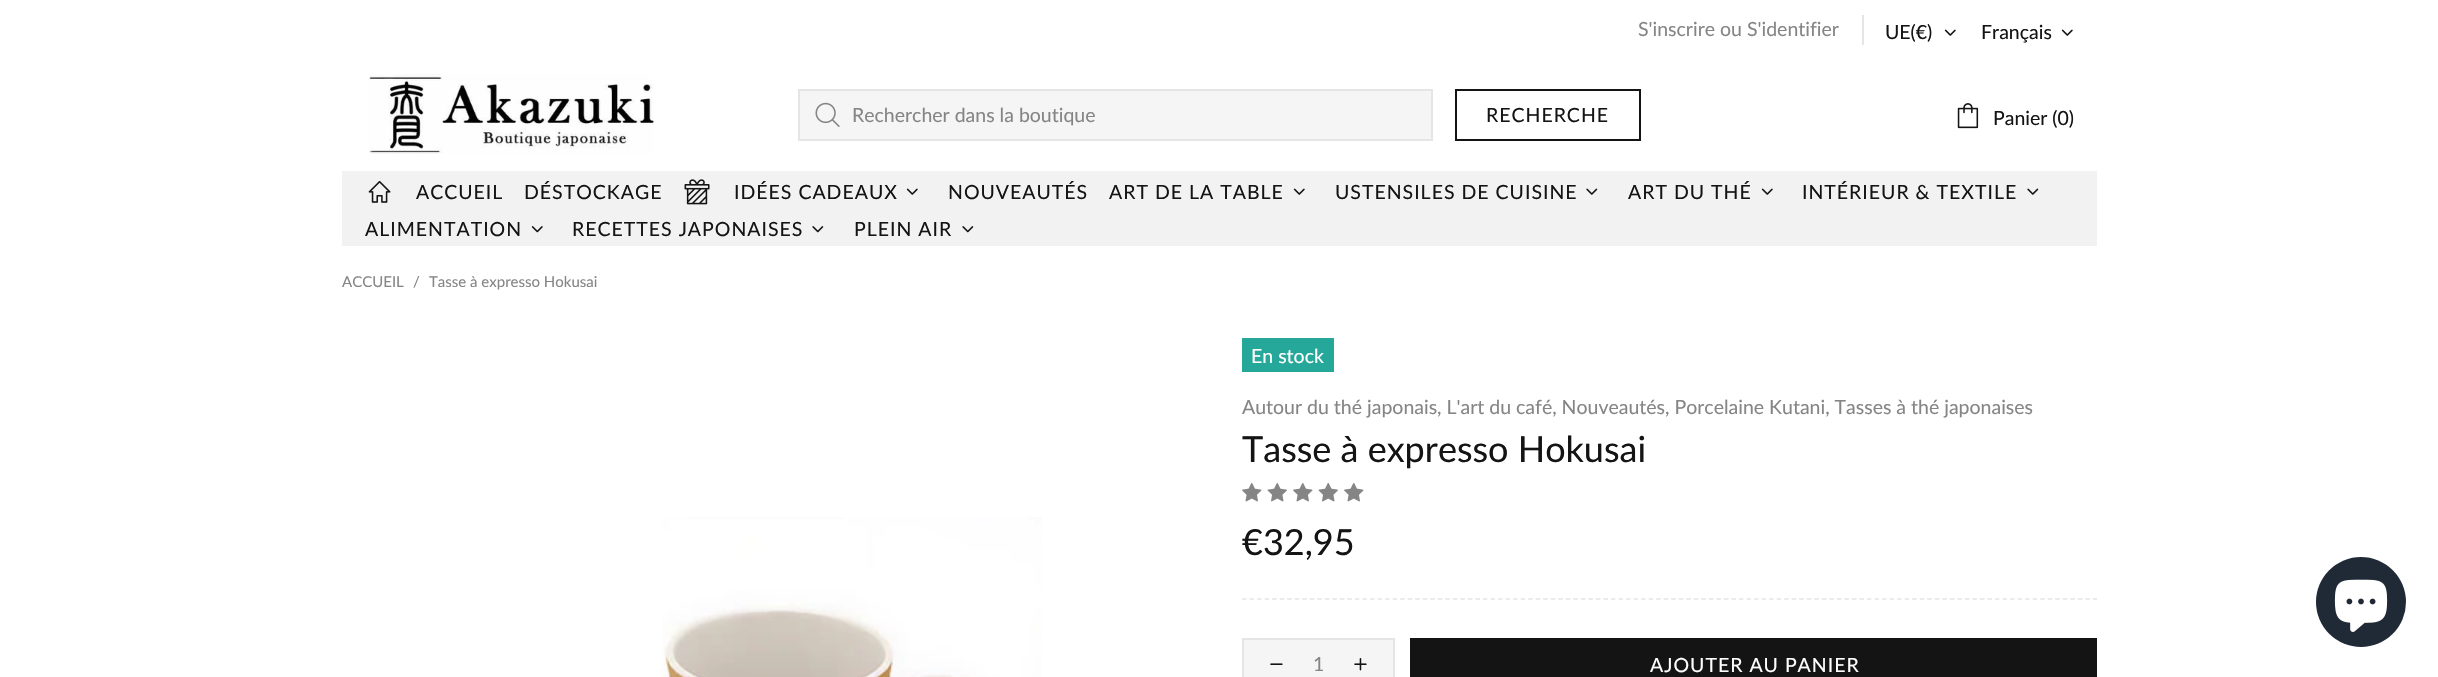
#include "include/core/SkBlurTypes.h"
#include "include/core/SkCanvas.h"
#include "include/core/SkData.h"
#include "include/core/SkFont.h"
#include "include/core/SkFontMgr.h"
#include "include/core/SkImage.h"
#include "include/core/SkMaskFilter.h"
#include "include/core/SkPaint.h"
#include "include/core/SkPathBuilder.h"
#include "include/core/SkTextBlob.h"
#include "include/effects/SkDashPathEffect.h"
#include "include/effects/SkGradientShader.h"
#include "include/utils/SkParsePath.h"

extern sk_sp<SkFontMgr> fontMgr;

static SkFont font(const char* family, int weight, float size, bool italic = false) {
    SkFontStyle style(weight, SkFontStyle::kNormal_Width,
        italic ? SkFontStyle::kItalic_Slant : SkFontStyle::kUpright_Slant);
    SkFont result(fontMgr->matchFamilyStyle(family, style), size);
    result.setSubpixel(true);
    return result;
}

static void drawLabel(SkCanvas* canvas, const char* s, float x, float y, const SkFont& font, SkColor color) {
    SkPaint ink(SkColor4f::FromColor(color));
    ink.setAntiAlias(true);
    canvas->drawString(s, x, y, font, ink);
}

static void drawTracked(SkCanvas* canvas, const char* s, float x, float y, const SkFont& font, const SkPaint& ink, float letter, float word) {
    std::vector<SkGlyphID> glyphs(font.countText(s, strlen(s), SkTextEncoding::kUTF8));
    std::vector<float> xs(glyphs.size());
    font.textToGlyphs(s, strlen(s), SkTextEncoding::kUTF8, glyphs);
    font.getXPos(glyphs, xs, x);
    float extra = 0;
    for (size_t i = 0; i < glyphs.size(); i++) {
        xs[i] += extra;
        extra += letter + word * (glyphs[i] == font.unicharToGlyph(' '));
    }
    canvas->drawTextBlob(SkTextBlob::MakeFromPosHGlyphs(glyphs, xs, y, font), 0, 0, ink);
}

static void fillRect(SkCanvas* canvas, float x, float y, float w, float h, SkColor color) {
    SkPaint ink(SkColor4f::FromColor(color));
    ink.setAntiAlias(true);
    canvas->drawRect(SkRect::MakeXYWH(x, y, w, h), ink);
}

static void drawPhoto(SkCanvas* canvas, const char* path, float x, float y, float w, float h) {
    auto image = SkImages::DeferredFromEncodedData(SkData::MakeFromFileName(path));
    canvas->drawImageRect(image, SkRect::MakeXYWH(x, y, w, h), SkSamplingOptions());
}

static SkPath parsePath(const char* data, bool evenOdd = false) {
    SkPath result = *SkParsePath::FromSVGString(data);
    if (evenOdd) result.setFillType(SkPathFillType::kEvenOdd);
    return result;
}

void draw(SkCanvas* canvas) {
    SkPaint paint;
    paint.setAntiAlias(true);
    canvas->clear(0xFFFFFFFF);
    SkFont font1 = font("Lato", 400, 19.5f);
    drawLabel(canvas, "S'inscrire ou S'identifier", 1638, 36, font1, 0xFF858585);
    fillRect(canvas, 1862, 15, 2, 30, 0xFFE5E5E5);
    drawLabel(canvas, "UE(€)", 1885, 39, font1, 0xFF141414);
    drawPhoto(canvas, "assets/img1.png", 1944, 29, 12, 7);
    drawLabel(canvas, "Français", 1981, 39, font1, 0xFF141414);
    drawPhoto(canvas, "assets/img1.png", 2061, 29, 12, 7);
    drawPhoto(canvas, "assets/img2.png", 369, 74, 285, 80);
    paint.setColor(0xFFF5F5F5);
    canvas->drawRect(SkRect::MakeXYWH(799, 90, 633, 50), paint);
    paint.setStroke(true);
    paint.setStrokeWidth(2);
    paint.setColor(0xFFE5E5E5);
    canvas->drawRect(SkRect::MakeXYWH(799, 90, 633, 50), paint);
    drawPhoto(canvas, "assets/img3.png", 815, 102, 25, 25);
    drawLabel(canvas, "Rechercher dans la boutique", 852, 122, font1, 0xFF858585);
    paint.setColor(0xFF141414);
    canvas->drawRect(SkRect::MakeXYWH(1456, 90, 184, 50), paint);
    paint.setStroke(false);
    drawTracked(canvas, "RECHERCHE", 1486, 122, font1, paint, 1, 0);
    drawPhoto(canvas, "assets/img4.png", 1957, 103, 22, 26);
    drawLabel(canvas, "Panier (0)", 1993, 125, font1, 0xFF141414);
    fillRect(canvas, 342, 171, 1755, 75, 0xFFF2F2F2);
    drawPhoto(canvas, "assets/img5.png", 368, 181, 23, 22);
    drawTracked(canvas, "ACCUEIL", 416, 199, font1, paint, 1, 0);
    drawTracked(canvas, "DÉSTOCKAGE", 524, 199, font1, paint, 1, 0);
    drawPhoto(canvas, "assets/img6.png", 684, 179, 26, 26);
    drawTracked(canvas, "IDÉES CADEAUX", 734, 199, font1, paint, 1, 0);
    drawPhoto(canvas, "assets/img7.png", 906, 188, 12, 7);
    drawTracked(canvas, "NOUVEAUTÉS", 948, 199, font1, paint, 1, 0);
    drawTracked(canvas, "ART DE LA TABLE", 1109, 199, font1, paint, 1, 0);
    drawPhoto(canvas, "assets/img7.png", 1293, 188, 12, 7);
    drawTracked(canvas, "USTENSILES DE CUISINE", 1335, 199, font1, paint, 1, 0);
    drawPhoto(canvas, "assets/img8.png", 1586, 188, 12, 7);
    drawTracked(canvas, "ART DU THÉ", 1628, 199, font1, paint, 1, 0);
    drawPhoto(canvas, "assets/img7.png", 1761, 188, 12, 7);
    drawTracked(canvas, "INTÉRIEUR & TEXTILE", 1802, 199, font1, paint, 1, 0);
    drawPhoto(canvas, "assets/img8.png", 2027, 188, 12, 7);
    drawTracked(canvas, "ALIMENTATION", 365, 236, font1, paint, 1, 0);
    drawPhoto(canvas, "assets/img9.png", 531, 226, 12, 7);
    drawTracked(canvas, "RECETTES JAPONAISES", 572, 236, font1, paint, 1, 0);
    drawPhoto(canvas, "assets/img10.png", 812, 226, 12, 7);
    drawTracked(canvas, "PLEIN AIR", 854, 236, font1, paint, 1, 0);
    drawPhoto(canvas, "assets/img10.png", 962, 226, 12, 7);
    SkFont font2 = font("Lato", 400, 15);
    drawLabel(canvas, "ACCUEIL", 342, 287, font2, 0xFF858585);
    drawLabel(canvas, "/", 413, 287, font2, 0xFF858585);
    drawLabel(canvas, "Tasse à expresso Hokusai", 429, 287, font2, 0xFF858585);
    drawPhoto(canvas, "assets/img11.png", 662, 517, 380, 160);
    fillRect(canvas, 1242, 338, 92, 34, 0xFF25A799);
    drawLabel(canvas, "En stock", 1251, 363, font1, 0xFFFFFFFF);
    drawLabel(canvas, "Autour du thé japonais, L'art du café, Nouveautés, Porcelaine Kutani, Tasses à thé japonaises", 1242, 414, font1, 0xFF858585);
    SkFont font3 = font("Lato", 400, 36);
    drawLabel(canvas, "Tasse à expresso Hokusai", 1242, 462, font3, 0xFF141414);
    drawPhoto(canvas, "assets/img12.png", 1242, 483, 20, 19);
    drawPhoto(canvas, "assets/img13.png", 1267, 483, 20, 19);
    drawPhoto(canvas, "assets/img12.png", 1293, 483, 20, 19);
    drawPhoto(canvas, "assets/img13.png", 1318, 483, 20, 19);
    drawPhoto(canvas, "assets/img12.png", 1344, 483, 20, 19);
    drawLabel(canvas, "€32,95", 1242, 555, font3, 0xFF141414);
    paint.setStroke(true);
    paint.setStrokeWidth(1.5f);
    paint.setColor(0xFFE5E5E5);
    paint.setPathEffect(SkDashPathEffect::Make({{4.5f, 3.03f}}, 0));
    canvas->drawPath(parsePath("M1242 599H2097"), paint);
    paint.setPathEffect(nullptr);
    paint.setStroke(false);
    paint.setColor(0xFFF5F5F5);
    canvas->drawRect(SkRect::MakeXYWH(1243, 639, 151, 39), paint);
    paint.setStroke(true);
    paint.setStrokeWidth(2);
    paint.setColor(0xFFE5E5E5);
    canvas->drawRect(SkRect::MakeXYWH(1243, 639, 151, 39), paint);
    drawPhoto(canvas, "assets/img14.png", 1270, 663, 13, 2);
    drawLabel(canvas, "1", 1313, 671, font1, 0xFF858585);
    drawPhoto(canvas, "assets/img15.png", 1354, 658, 13, 13);
    fillRect(canvas, 1410, 638, 687, 39, 0xFF141414);
    paint.setStroke(false);
    paint.setColor(0xFFFFFFFF);
    drawTracked(canvas, "AJOUTER AU PANIER", 1650, 672, font1, paint, 1, 0);
    paint.setColor(0xFF202A36);
    canvas->drawCircle(2361, 602, 45, paint);
    drawPhoto(canvas, "assets/img16.png", 2334, 579, 54, 53);
}
